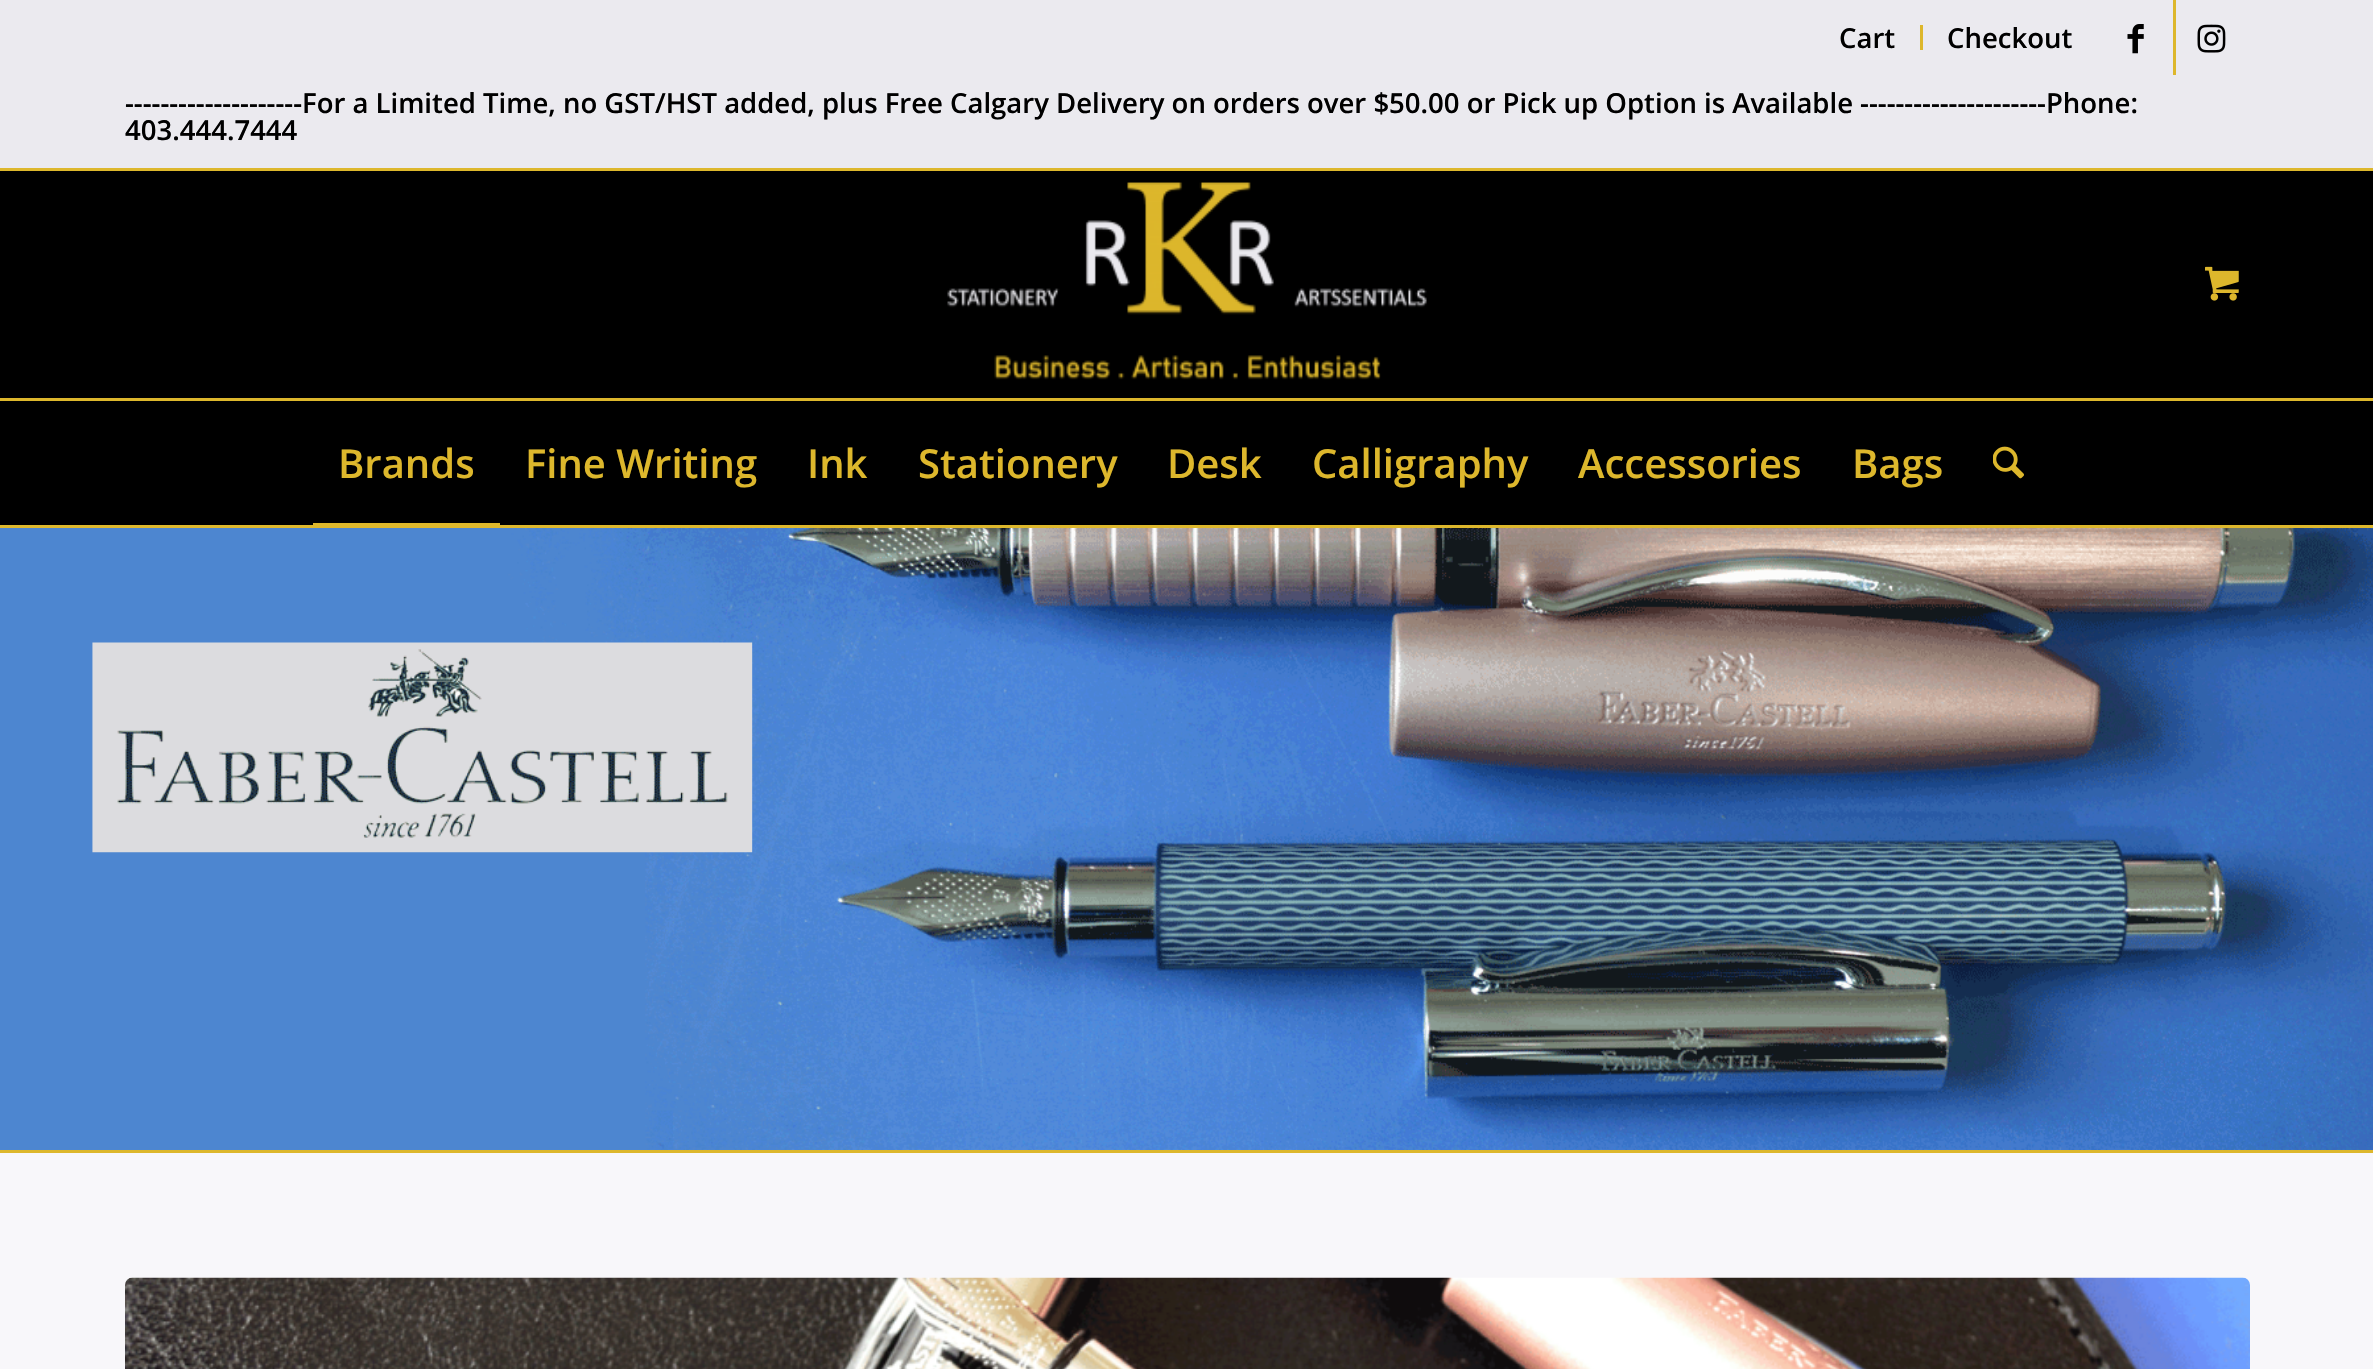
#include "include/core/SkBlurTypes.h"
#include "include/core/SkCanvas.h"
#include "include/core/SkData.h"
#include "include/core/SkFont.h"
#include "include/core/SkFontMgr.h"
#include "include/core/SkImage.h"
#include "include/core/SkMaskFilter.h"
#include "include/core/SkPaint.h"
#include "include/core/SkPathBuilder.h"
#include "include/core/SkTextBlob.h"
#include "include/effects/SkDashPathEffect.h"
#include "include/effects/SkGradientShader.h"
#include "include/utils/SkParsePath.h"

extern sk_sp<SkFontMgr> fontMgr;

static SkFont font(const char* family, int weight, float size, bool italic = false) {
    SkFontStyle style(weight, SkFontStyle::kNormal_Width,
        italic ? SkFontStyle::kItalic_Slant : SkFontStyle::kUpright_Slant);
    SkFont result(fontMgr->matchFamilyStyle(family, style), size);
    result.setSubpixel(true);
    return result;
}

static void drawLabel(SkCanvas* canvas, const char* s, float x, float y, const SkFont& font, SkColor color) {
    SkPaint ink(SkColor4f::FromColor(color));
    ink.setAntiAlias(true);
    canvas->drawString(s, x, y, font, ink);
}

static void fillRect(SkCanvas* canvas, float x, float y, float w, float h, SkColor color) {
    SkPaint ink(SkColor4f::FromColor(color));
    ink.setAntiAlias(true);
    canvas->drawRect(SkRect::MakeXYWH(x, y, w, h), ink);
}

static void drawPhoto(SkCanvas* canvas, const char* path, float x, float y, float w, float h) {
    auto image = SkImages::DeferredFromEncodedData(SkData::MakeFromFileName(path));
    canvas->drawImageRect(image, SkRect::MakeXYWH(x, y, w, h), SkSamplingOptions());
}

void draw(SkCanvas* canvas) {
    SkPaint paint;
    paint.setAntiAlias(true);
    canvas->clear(0xFFFFFFFF);
    fillRect(canvas, 0, 0, 2373, 168, 0xFFEBEAEF);
    fillRect(canvas, 0, 168, 2373, 3, 0xFFDDB72C);
    fillRect(canvas, 1920, 25, 3, 25, 0xFFDDB72C);
    SkFont font1 = font("Open Sans", 600, 27.5f);
    drawLabel(canvas, "Cart", 1839, 48, font1, 0xFF000000);
    drawLabel(canvas, "Checkout", 1947, 48, font1, 0xFF000000);
    fillRect(canvas, 2173, 0, 3, 75, 0xFFDDB72C);
    drawPhoto(canvas, "assets/img1.png", 2127, 24, 17, 30);
    drawPhoto(canvas, "assets/img2.png", 2197, 24, 29, 29);
    drawLabel(canvas, "--------------------For a Limited Time, no GST/HST added, plus Free Calgary Delivery on orders over $50.00 or Pick up Option is Available ---------------------Phone:", 125, 113, font1, 0xFF000000);
    drawLabel(canvas, "403.444.7444", 125, 140, font1, 0xFF000000);
    fillRect(canvas, 0, 171, 2373, 354, 0xFF000000);
    fillRect(canvas, 0, 525, 2373, 3, 0xFFDDB72C);
    drawPhoto(canvas, "assets/img3.png", 917, 171, 540, 209);
    drawPhoto(canvas, "assets/img4.png", 2205, 266, 34, 35);
    fillRect(canvas, 0, 398, 2373, 3, 0xFFDDB72C);
    SkFont font2 = font("Open Sans", 600, 40);
    drawLabel(canvas, "Brands", 338, 478, font2, 0xFFDDB72C);
    fillRect(canvas, 313, 523, 187, 2, 0xFFDDB72C);
    drawLabel(canvas, "Fine Writing", 525, 478, font2, 0xFFDDB72C);
    drawLabel(canvas, "Ink", 807, 478, font2, 0xFFDDB72C);
    drawLabel(canvas, "Stationery", 918, 478, font2, 0xFFDDB72C);
    drawLabel(canvas, "Desk", 1167, 478, font2, 0xFFDDB72C);
    drawLabel(canvas, "Calligraphy", 1312, 478, font2, 0xFFDDB72C);
    drawLabel(canvas, "Accessories", 1578, 478, font2, 0xFFDDB72C);
    drawLabel(canvas, "Bags", 1852, 478, font2, 0xFFDDB72C);
    drawPhoto(canvas, "assets/img5.png", 1993, 446, 31, 33);
    drawPhoto(canvas, "assets/img6.png", 0, 528, 2373, 622);
    fillRect(canvas, 0, 1153, 2373, 216, 0xFFF8F7FA);
    fillRect(canvas, 0, 1150, 2373, 3, 0xFFDDB72C);
    drawPhoto(canvas, "assets/img7.png", 125, 1277, 2125, 92);
}
